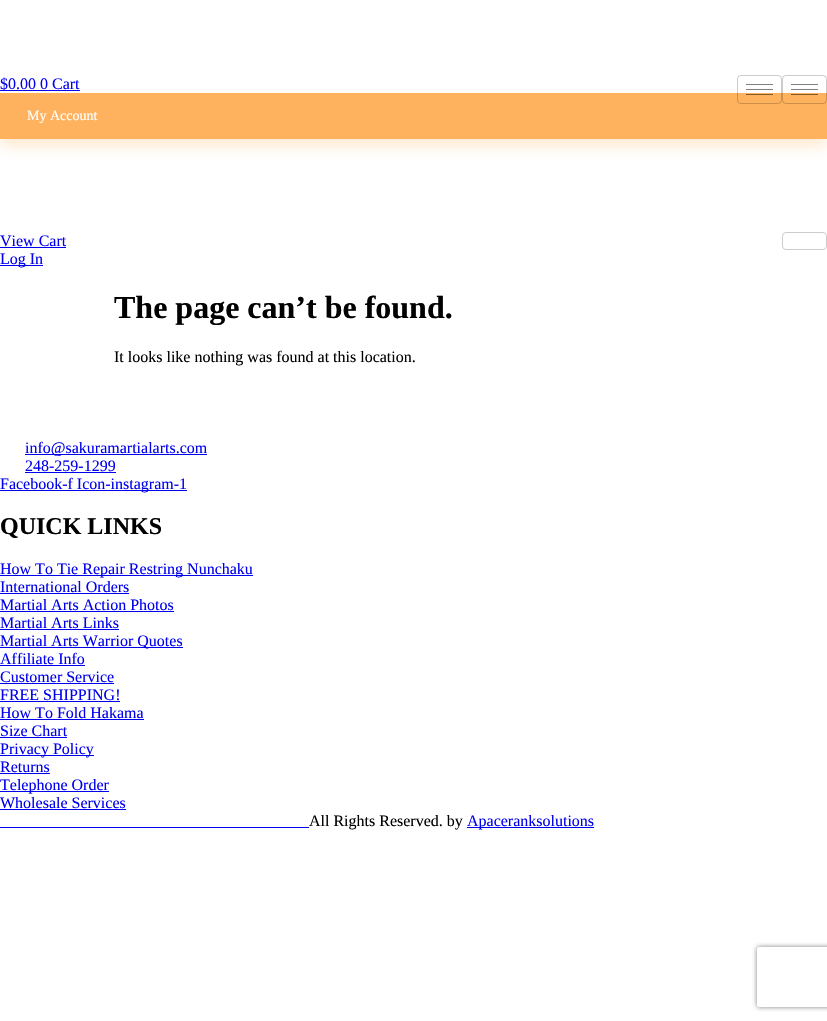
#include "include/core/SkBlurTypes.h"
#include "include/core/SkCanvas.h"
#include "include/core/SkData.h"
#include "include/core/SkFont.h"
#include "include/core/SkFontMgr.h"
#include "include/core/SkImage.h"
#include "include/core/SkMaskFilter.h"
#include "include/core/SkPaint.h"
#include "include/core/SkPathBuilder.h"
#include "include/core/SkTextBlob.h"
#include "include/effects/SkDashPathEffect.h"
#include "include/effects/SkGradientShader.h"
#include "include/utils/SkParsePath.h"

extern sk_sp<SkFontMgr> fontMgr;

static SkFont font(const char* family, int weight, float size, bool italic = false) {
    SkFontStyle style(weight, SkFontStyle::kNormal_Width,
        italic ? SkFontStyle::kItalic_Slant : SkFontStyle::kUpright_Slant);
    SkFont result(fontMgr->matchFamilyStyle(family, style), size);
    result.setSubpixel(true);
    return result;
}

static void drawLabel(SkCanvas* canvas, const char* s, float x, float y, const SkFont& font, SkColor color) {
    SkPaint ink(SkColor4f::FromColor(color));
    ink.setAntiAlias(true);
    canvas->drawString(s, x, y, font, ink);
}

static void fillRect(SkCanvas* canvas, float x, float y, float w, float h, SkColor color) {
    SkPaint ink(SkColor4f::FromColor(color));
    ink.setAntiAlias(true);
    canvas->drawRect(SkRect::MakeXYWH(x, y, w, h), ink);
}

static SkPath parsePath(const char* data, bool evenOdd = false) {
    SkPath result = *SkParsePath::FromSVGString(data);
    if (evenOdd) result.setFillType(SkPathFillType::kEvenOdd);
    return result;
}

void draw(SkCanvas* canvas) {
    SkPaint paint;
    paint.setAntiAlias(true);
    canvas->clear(0xFFFFFFFF);
    fillRect(canvas, 0, 90, 80, 1, 0xFF0000EE);
    SkFont font1 = font("Liberation Serif", 400, 16);
    drawLabel(canvas, "$0.00 0 Cart", 0, 89, font1, 0xFF0000EE);
    paint.setColor(0x4DFFB25D);
    paint.setMaskFilter(SkMaskFilter::MakeBlur(kNormal_SkBlurStyle, 7.5f));
    canvas->drawRect(SkRect::MakeXYWH(0, 100, 827, 46), paint);
    paint.setMaskFilter(nullptr);
    fillRect(canvas, 0, 93, 827, 46, 0xFFFFB25D);
    paint.setStroke(true);
    paint.setStrokeWidth(1);
    paint.setColor(0x33000000);
    canvas->drawRoundRect(SkRect::MakeXYWH(737.5f, 75.5f, 44, 28), 3.5f, 3.5f, paint);
    fillRect(canvas, 746, 84, 27, 1, 0xFF807F7F);
    fillRect(canvas, 746, 89, 27, 1, 0xFF807F7E);
    fillRect(canvas, 746, 94, 27, 1, 0xFF80592F);
    SkFont font2 = font("Liberation Serif", 400, 14);
    drawLabel(canvas, "My Account", 27, 120, font2, 0xFFFFFFFF);
    canvas->drawRoundRect(SkRect::MakeXYWH(782.5f, 75.5f, 44, 28), 3.5f, 3.5f, paint);
    fillRect(canvas, 791, 84, 27, 1, 0xFF807F7F);
    fillRect(canvas, 791, 89, 27, 1, 0xFF807F7E);
    fillRect(canvas, 791, 94, 27, 1, 0xFF80592F);
    drawLabel(canvas, "View Cart", 0, 246, font1, 0xFF0000EE);
    fillRect(canvas, 0, 247, 66, 1, 0xFF0000EE);
    fillRect(canvas, 0, 265, 43, 1, 0xFF0000EE);
    drawLabel(canvas, "Log In", 0, 264, font1, 0xFF0000EE);
    paint.setColor(0xFFCCCCCC);
    canvas->drawRoundRect(SkRect::MakeXYWH(782.5f, 232.5f, 44, 17), 3.5f, 3.5f, paint);
    SkFont font3 = font("Liberation Serif", 700, 32);
    drawLabel(canvas, "The page can’t be found.", 114, 318, font3, 0xFF000000);
    drawLabel(canvas, "It looks like nothing was found at this location.", 114, 362, font1, 0xFF000000);
    fillRect(canvas, 25, 454, 182, 1, 0xFF0000EE);
    drawLabel(canvas, "info@sakuramartialarts.com", 25, 453, font1, 0xFF0000EE);
    drawLabel(canvas, "248-259-1299", 25, 471, font1, 0xFF0000EE);
    fillRect(canvas, 25, 472, 91, 1, 0xFF0000EE);
    fillRect(canvas, 0, 490, 187, 1, 0xFF0000EE);
    drawLabel(canvas, "Facebook-f Icon-instagram-1", 0, 489, font1, 0xFF0000EE);
    SkFont font4 = font("Liberation Serif", 700, 24);
    drawLabel(canvas, "QUICK LINKS", 0, 534, font4, 0xFF000000);
    fillRect(canvas, 0, 575, 253, 1, 0xFF0000EE);
    drawLabel(canvas, "How To Tie Repair Restring Nunchaku", 0, 574, font1, 0xFF0000EE);
    drawLabel(canvas, "International Orders", 0, 592, font1, 0xFF0000EE);
    fillRect(canvas, 0, 593, 129, 1, 0xFF0000EE);
    drawLabel(canvas, "Martial Arts Action Photos", 0, 610, font1, 0xFF0000EE);
    fillRect(canvas, 0, 611, 174, 1, 0xFF0000EE);
    drawLabel(canvas, "Martial Arts Links", 0, 628, font1, 0xFF0000EE);
    fillRect(canvas, 0, 629, 119, 1, 0xFF0000EE);
    fillRect(canvas, 0, 647, 183, 1, 0xFF0000EE);
    drawLabel(canvas, "Martial Arts Warrior Quotes", 0, 646, font1, 0xFF0000EE);
    drawLabel(canvas, "Affiliate Info", 0, 664, font1, 0xFF0000EE);
    fillRect(canvas, 0, 665, 85, 1, 0xFF0000EE);
    drawLabel(canvas, "Customer Service", 0, 682, font1, 0xFF0000EE);
    fillRect(canvas, 0, 683, 114, 1, 0xFF0000EE);
    drawLabel(canvas, "FREE SHIPPING!", 0, 700, font1, 0xFF0000EE);
    fillRect(canvas, 0, 701, 120, 1, 0xFF0000EE);
    drawLabel(canvas, "How To Fold Hakama", 0, 718, font1, 0xFF0000EE);
    fillRect(canvas, 0, 719, 144, 1, 0xFF0000EE);
    drawLabel(canvas, "Size Chart", 0, 736, font1, 0xFF0000EE);
    fillRect(canvas, 0, 737, 67, 1, 0xFF0000EE);
    fillRect(canvas, 0, 755, 94, 1, 0xFF0000EE);
    drawLabel(canvas, "Privacy Policy", 0, 754, font1, 0xFF0000EE);
    drawLabel(canvas, "Returns", 0, 772, font1, 0xFF0000EE);
    fillRect(canvas, 0, 773, 50, 1, 0xFF0000EE);
    fillRect(canvas, 0, 791, 109, 1, 0xFF0000EE);
    drawLabel(canvas, "Telephone Order", 0, 790, font1, 0xFF0000EE);
    drawLabel(canvas, "Wholesale Services", 0, 808, font1, 0xFF0000EE);
    fillRect(canvas, 0, 809, 126, 1, 0xFF0000EE);
    fillRect(canvas, 0, 827, 309, 1, 0xFF0000EE);
    drawLabel(canvas, "All Rights Reserved. by", 309, 826, font1, 0xFF000000);
    fillRect(canvas, 467, 827, 127, 1, 0xFF0000EE);
    drawLabel(canvas, "Apaceranksolutions", 467, 826, font1, 0xFF0000EE);
    canvas->save();
    canvas->clipPath(parsePath("M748 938H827V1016H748ZM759 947H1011C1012 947 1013 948 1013 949V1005C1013 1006 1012 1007 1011 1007H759C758 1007 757 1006 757 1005V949C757 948 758 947 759 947Z", true), true);
    paint.setStroke(false);
    paint.setColor(0xFF808080);
    paint.setMaskFilter(SkMaskFilter::MakeBlur(kNormal_SkBlurStyle, 2.5f));
    canvas->drawRoundRect(SkRect::MakeXYWH(757, 947, 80, 60), 2, 2, paint);
    paint.setMaskFilter(nullptr);
    canvas->restore();
}
